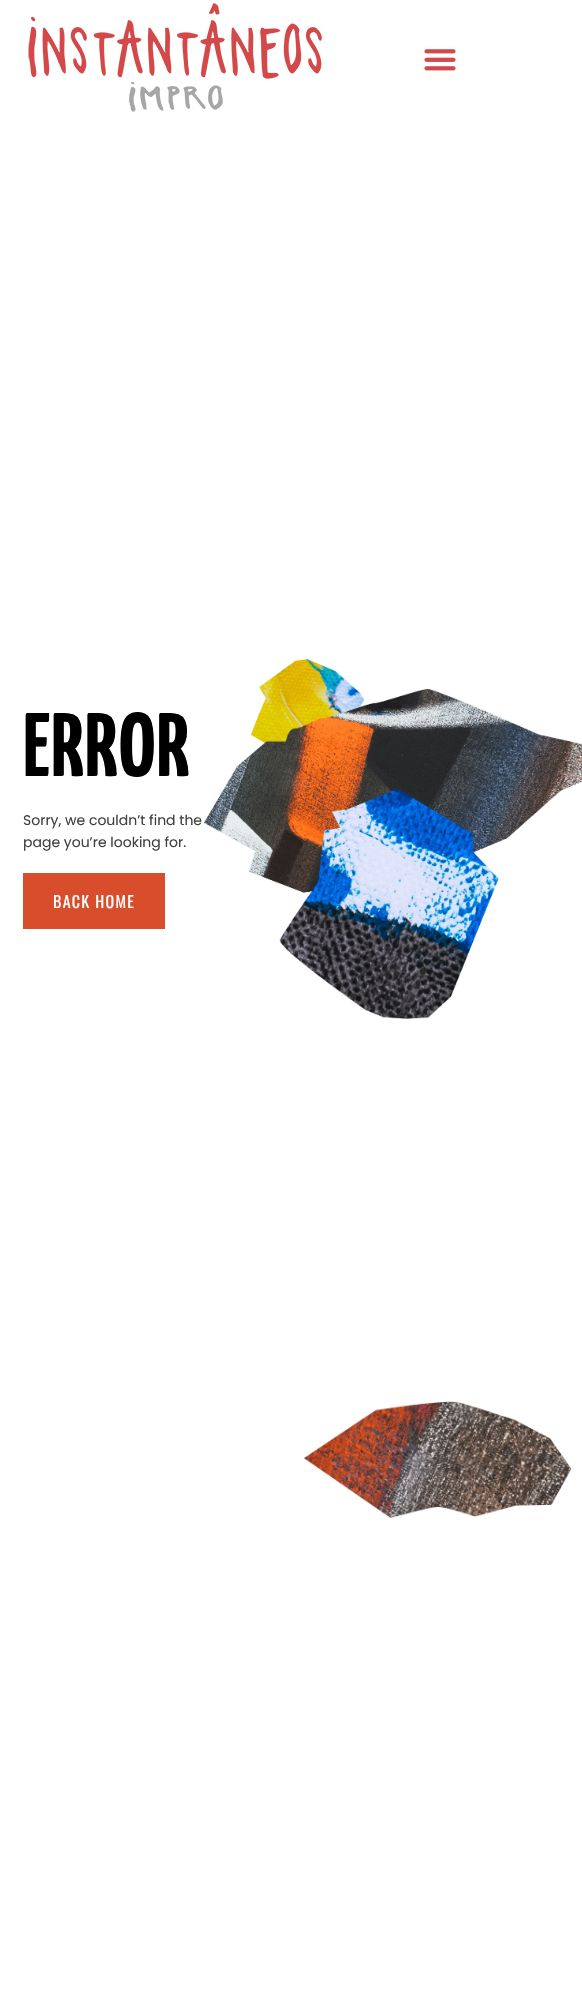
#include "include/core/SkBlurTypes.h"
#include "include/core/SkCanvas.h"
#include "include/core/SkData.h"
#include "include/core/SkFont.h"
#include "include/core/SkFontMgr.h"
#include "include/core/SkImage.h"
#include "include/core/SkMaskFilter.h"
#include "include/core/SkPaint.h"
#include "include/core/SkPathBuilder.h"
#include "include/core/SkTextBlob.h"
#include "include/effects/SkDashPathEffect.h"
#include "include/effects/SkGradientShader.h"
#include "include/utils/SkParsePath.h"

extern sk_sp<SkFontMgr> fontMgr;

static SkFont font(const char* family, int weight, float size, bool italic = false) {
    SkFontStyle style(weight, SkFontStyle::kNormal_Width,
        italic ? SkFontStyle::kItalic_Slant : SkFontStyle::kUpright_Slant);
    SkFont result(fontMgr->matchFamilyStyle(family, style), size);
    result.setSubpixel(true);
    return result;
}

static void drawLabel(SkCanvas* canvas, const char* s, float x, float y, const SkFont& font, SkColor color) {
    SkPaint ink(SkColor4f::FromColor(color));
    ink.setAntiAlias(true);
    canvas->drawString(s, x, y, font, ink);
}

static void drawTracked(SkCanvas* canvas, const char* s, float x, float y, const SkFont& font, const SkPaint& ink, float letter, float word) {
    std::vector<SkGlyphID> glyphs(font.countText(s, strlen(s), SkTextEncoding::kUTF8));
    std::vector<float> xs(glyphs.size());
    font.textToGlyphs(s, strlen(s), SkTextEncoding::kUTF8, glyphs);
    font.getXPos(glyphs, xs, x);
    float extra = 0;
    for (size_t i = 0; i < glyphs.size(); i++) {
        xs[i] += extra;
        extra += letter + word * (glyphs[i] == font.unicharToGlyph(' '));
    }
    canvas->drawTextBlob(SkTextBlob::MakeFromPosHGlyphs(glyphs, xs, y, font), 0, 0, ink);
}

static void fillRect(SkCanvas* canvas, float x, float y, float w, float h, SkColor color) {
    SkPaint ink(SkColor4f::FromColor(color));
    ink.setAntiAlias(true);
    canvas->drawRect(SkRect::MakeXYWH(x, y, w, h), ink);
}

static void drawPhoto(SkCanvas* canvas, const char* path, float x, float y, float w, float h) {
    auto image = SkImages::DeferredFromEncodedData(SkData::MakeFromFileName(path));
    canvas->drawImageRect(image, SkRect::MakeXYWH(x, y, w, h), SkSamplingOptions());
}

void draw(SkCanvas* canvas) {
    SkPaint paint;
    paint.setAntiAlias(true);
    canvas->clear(0xFFFFFFFF);
    drawPhoto(canvas, "assets/img1.png", 28, 3, 294, 109);
    drawPhoto(canvas, "assets/img2.png", 424, 49, 32, 22);
    SkFont font1 = font("Yanone Kaffeesatz", 700, 90);
    paint.setColor(0xFF000000);
    drawTracked(canvas, "ERROR", 23, 776, font1, paint, 1, 0);
    SkFont font2 = font("Poppins", 400, 14);
    drawLabel(canvas, "Sorry, we couldn’t find the", 23, 825, font2, 0xFF404040);
    drawLabel(canvas, "page you’re looking for.", 23, 847, font2, 0xFF404040);
    fillRect(canvas, 23, 873, 142, 56, 0xFFD84D2B);
    SkFont font3 = font("Oswald", 400, 16);
    paint.setColor(0xFFFFFFFF);
    drawTracked(canvas, "BACK HOME", 53, 908, font3, paint, 1.25f, 0);
    drawPhoto(canvas, "assets/img3.png", 304, 1401, 268, 117);
    drawPhoto(canvas, "assets/img4.png", 204, 659, 378, 360);
}
